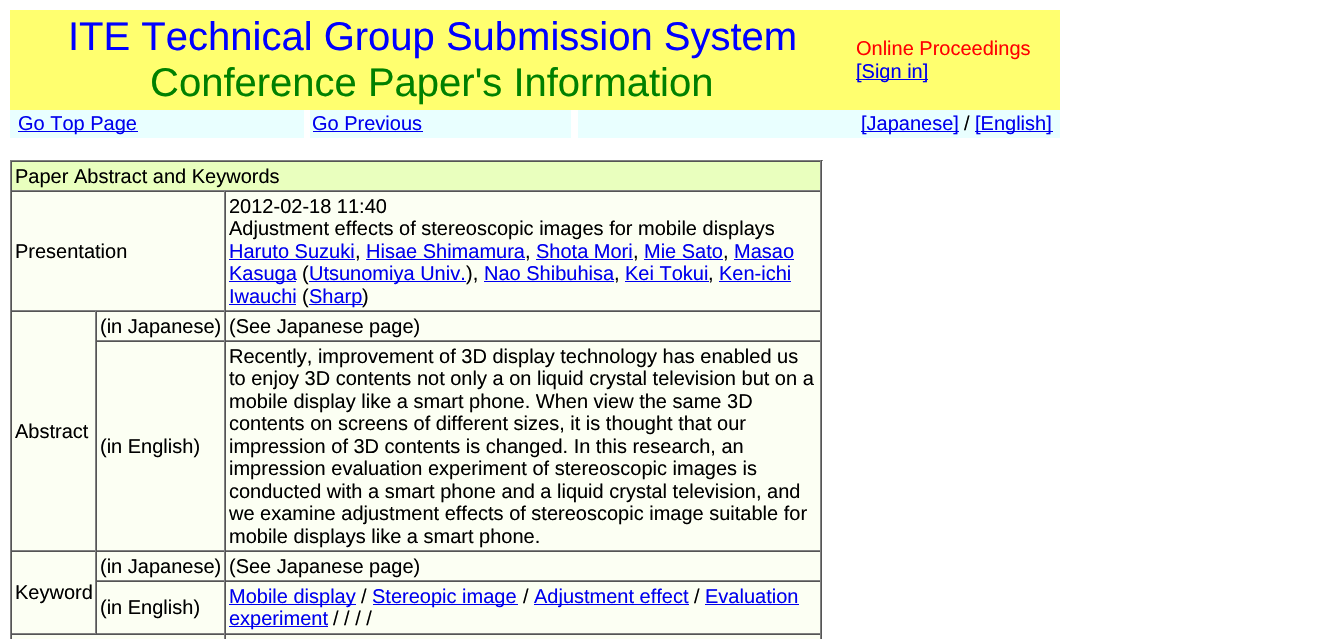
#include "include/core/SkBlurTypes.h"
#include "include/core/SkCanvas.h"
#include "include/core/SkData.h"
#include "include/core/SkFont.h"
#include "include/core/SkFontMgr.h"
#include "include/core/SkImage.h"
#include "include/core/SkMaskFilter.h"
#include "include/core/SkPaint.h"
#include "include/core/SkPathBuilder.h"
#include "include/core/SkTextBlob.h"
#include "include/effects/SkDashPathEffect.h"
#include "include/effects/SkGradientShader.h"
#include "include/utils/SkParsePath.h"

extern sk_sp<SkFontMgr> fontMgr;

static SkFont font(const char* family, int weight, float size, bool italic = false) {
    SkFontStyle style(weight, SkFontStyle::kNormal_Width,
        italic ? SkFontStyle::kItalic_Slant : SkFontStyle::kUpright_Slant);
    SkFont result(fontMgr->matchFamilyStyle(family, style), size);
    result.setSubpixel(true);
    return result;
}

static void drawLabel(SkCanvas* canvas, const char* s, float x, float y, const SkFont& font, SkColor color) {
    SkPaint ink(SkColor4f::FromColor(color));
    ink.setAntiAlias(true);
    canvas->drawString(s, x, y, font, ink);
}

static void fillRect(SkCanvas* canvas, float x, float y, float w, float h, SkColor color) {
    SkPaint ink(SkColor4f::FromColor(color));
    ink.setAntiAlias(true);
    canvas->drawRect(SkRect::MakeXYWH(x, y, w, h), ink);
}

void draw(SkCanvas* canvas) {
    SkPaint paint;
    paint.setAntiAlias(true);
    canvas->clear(0xFFFFFFFF);
    fillRect(canvas, 10, 10, 1050, 100, 0xFFFFFF6F);
    SkFont font1 = font("Liberation Sans", 400, 40);
    drawLabel(canvas, "ITE Technical Group Submission System", 68, 50, font1, 0xFF0000FF);
    drawLabel(canvas, "Conference Paper's Information", 150, 96, font1, 0xFF008000);
    SkFont font2 = font("Liberation Sans", 400, 20);
    drawLabel(canvas, "Online Proceedings", 856, 55, font2, 0xFFFF0000);
    fillRect(canvas, 856, 79, 72, 1, 0xFF0000EE);
    drawLabel(canvas, "[Sign in]", 856, 78, font2, 0xFF0000EE);
    fillRect(canvas, 10, 110, 294, 28, 0xFFE9FFFF);
    fillRect(canvas, 18, 131, 120, 1, 0xFF0000EE);
    drawLabel(canvas, "Go Top Page", 18, 130, font2, 0xFF0000EE);
    fillRect(canvas, 310, 110, 261, 28, 0xFFE9FFFF);
    drawLabel(canvas, "Go Previous", 312, 130, font2, 0xFF0000EE);
    fillRect(canvas, 313, 131, 110, 1, 0xFF0000EE);
    fillRect(canvas, 578, 110, 482, 28, 0xFFE9FFFF);
    fillRect(canvas, 861, 131, 98, 1, 0xFF0000EE);
    drawLabel(canvas, "[Japanese]", 861, 130, font2, 0xFF0000EE);
    drawLabel(canvas, "/", 964, 130, font2, 0xFF000000);
    fillRect(canvas, 975, 131, 78, 1, 0xFF0000EE);
    drawLabel(canvas, "[English]", 975, 130, font2, 0xFF0000EE);
    fillRect(canvas, 10, 160, 813, 1, 0xFF808080);
    fillRect(canvas, 821, 160, 1, 479, 0xFF555555);
    fillRect(canvas, 10, 160, 1, 479, 0xFF808080);
    fillRect(canvas, 12, 162, 808, 28, 0xFFE9FFBE);
    fillRect(canvas, 11, 161, 810, 1, 0xFF555555);
    fillRect(canvas, 820, 161, 1, 30, 0xFF808080);
    fillRect(canvas, 11, 190, 810, 1, 0xFF808080);
    fillRect(canvas, 11, 161, 1, 30, 0xFF555555);
    drawLabel(canvas, "Paper Abstract and Keywords", 15, 183, font2, 0xFF000000);
    fillRect(canvas, 12, 192, 212, 118, 0xFFFCFFF3);
    fillRect(canvas, 11, 191, 810, 1, 0xFF555555);
    fillRect(canvas, 224, 191, 1, 120, 0xFF808080);
    fillRect(canvas, 11, 310, 214, 1, 0xFF808080);
    fillRect(canvas, 11, 191, 1, 120, 0xFF555555);
    drawLabel(canvas, "Presentation", 15, 258, font2, 0xFF000000);
    fillRect(canvas, 226, 192, 594, 118, 0xFFFCFFF3);
    fillRect(canvas, 820, 191, 1, 120, 0xFF808080);
    fillRect(canvas, 225, 310, 596, 1, 0xFF808080);
    fillRect(canvas, 225, 191, 1, 120, 0xFF555555);
    drawLabel(canvas, "2012-02-18 11:40", 229, 213, font2, 0xFF000000);
    drawLabel(canvas, "Adjustment effects of stereoscopic images for mobile displays", 229, 235, font2, 0xFF000000);
    drawLabel(canvas, "Haruto Suzuki", 229, 258, font2, 0xFF0000EE);
    fillRect(canvas, 229, 259, 126, 1, 0xFF0000EE);
    drawLabel(canvas, ",", 355, 258, font2, 0xFF000000);
    drawLabel(canvas, "Hisae Shimamura", 366, 258, font2, 0xFF0000EE);
    fillRect(canvas, 366, 259, 159, 1, 0xFF0000EE);
    drawLabel(canvas, ",", 525, 258, font2, 0xFF000000);
    drawLabel(canvas, "Shota Mori", 536, 258, font2, 0xFF0000EE);
    fillRect(canvas, 536, 259, 97, 1, 0xFF0000EE);
    drawLabel(canvas, ",", 633, 258, font2, 0xFF000000);
    drawLabel(canvas, "Mie Sato", 644, 258, font2, 0xFF0000EE);
    fillRect(canvas, 644, 259, 79, 1, 0xFF0000EE);
    drawLabel(canvas, ",", 723, 258, font2, 0xFF000000);
    drawLabel(canvas, "Masao", 734, 258, font2, 0xFF0000EE);
    fillRect(canvas, 734, 259, 60, 1, 0xFF0000EE);
    fillRect(canvas, 229, 281, 67, 1, 0xFF0000EE);
    drawLabel(canvas, "Kasuga", 229, 280, font2, 0xFF0000EE);
    drawLabel(canvas, "(", 302, 280, font2, 0xFF000000);
    fillRect(canvas, 309, 281, 157, 1, 0xFF0000EE);
    drawLabel(canvas, "Utsunomiya Univ.", 309, 280, font2, 0xFF0000EE);
    drawLabel(canvas, "),", 466, 280, font2, 0xFF000000);
    drawLabel(canvas, "Nao Shibuhisa", 484, 280, font2, 0xFF0000EE);
    fillRect(canvas, 484, 281, 130, 1, 0xFF0000EE);
    drawLabel(canvas, ",", 614, 280, font2, 0xFF000000);
    drawLabel(canvas, "Kei Tokui", 625, 280, font2, 0xFF0000EE);
    fillRect(canvas, 625, 281, 84, 1, 0xFF0000EE);
    drawLabel(canvas, ",", 708, 280, font2, 0xFF000000);
    drawLabel(canvas, "Ken-ichi", 719, 280, font2, 0xFF0000EE);
    fillRect(canvas, 719, 281, 72, 1, 0xFF0000EE);
    drawLabel(canvas, "Iwauchi", 229, 303, font2, 0xFF0000EE);
    fillRect(canvas, 229, 304, 67, 1, 0xFF0000EE);
    drawLabel(canvas, "(", 302, 303, font2, 0xFF000000);
    fillRect(canvas, 309, 304, 54, 1, 0xFF0000EE);
    drawLabel(canvas, "Sharp", 309, 303, font2, 0xFF0000EE);
    drawLabel(canvas, ")", 362, 303, font2, 0xFF000000);
    fillRect(canvas, 97, 312, 127, 28, 0xFFFCFFF3);
    fillRect(canvas, 11, 311, 810, 1, 0xFF555555);
    fillRect(canvas, 224, 311, 1, 30, 0xFF808080);
    fillRect(canvas, 96, 340, 129, 1, 0xFF808080);
    fillRect(canvas, 96, 311, 1, 30, 0xFF555555);
    drawLabel(canvas, "(in Japanese)", 100, 333, font2, 0xFF000000);
    fillRect(canvas, 226, 312, 594, 28, 0xFFFCFFF3);
    fillRect(canvas, 820, 311, 1, 30, 0xFF808080);
    fillRect(canvas, 225, 340, 596, 1, 0xFF808080);
    fillRect(canvas, 225, 311, 1, 30, 0xFF555555);
    drawLabel(canvas, "(See Japanese page)", 229, 333, font2, 0xFF000000);
    fillRect(canvas, 12, 312, 83, 238, 0xFFFCFFF3);
    fillRect(canvas, 95, 311, 1, 240, 0xFF808080);
    fillRect(canvas, 11, 550, 85, 1, 0xFF808080);
    fillRect(canvas, 11, 311, 1, 240, 0xFF555555);
    drawLabel(canvas, "Abstract", 15, 438, font2, 0xFF000000);
    fillRect(canvas, 97, 342, 127, 208, 0xFFFCFFF3);
    fillRect(canvas, 96, 341, 725, 1, 0xFF555555);
    fillRect(canvas, 224, 341, 1, 210, 0xFF808080);
    fillRect(canvas, 96, 550, 129, 1, 0xFF808080);
    fillRect(canvas, 96, 341, 1, 210, 0xFF555555);
    drawLabel(canvas, "(in English)", 100, 453, font2, 0xFF000000);
    fillRect(canvas, 226, 342, 594, 208, 0xFFFCFFF3);
    fillRect(canvas, 820, 341, 1, 210, 0xFF808080);
    fillRect(canvas, 225, 550, 596, 1, 0xFF808080);
    fillRect(canvas, 225, 341, 1, 210, 0xFF555555);
    drawLabel(canvas, "Recently, improvement of 3D display technology has enabled us", 229, 363, font2, 0xFF000000);
    drawLabel(canvas, "to enjoy 3D contents not only a on liquid crystal television but on a", 229, 385, font2, 0xFF000000);
    drawLabel(canvas, "mobile display like a smart phone. When view the same 3D", 229, 408, font2, 0xFF000000);
    drawLabel(canvas, "contents on screens of different sizes, it is thought that our", 229, 430, font2, 0xFF000000);
    drawLabel(canvas, "impression of 3D contents is changed. In this research, an", 229, 453, font2, 0xFF000000);
    drawLabel(canvas, "impression evaluation experiment of stereoscopic images is", 229, 475, font2, 0xFF000000);
    drawLabel(canvas, "conducted with a smart phone and a liquid crystal television, and", 229, 498, font2, 0xFF000000);
    drawLabel(canvas, "we examine adjustment effects of stereoscopic image suitable for", 229, 520, font2, 0xFF000000);
    drawLabel(canvas, "mobile displays like a smart phone.", 229, 543, font2, 0xFF000000);
    fillRect(canvas, 97, 552, 127, 28, 0xFFFCFFF3);
    fillRect(canvas, 11, 551, 810, 1, 0xFF555555);
    fillRect(canvas, 224, 551, 1, 30, 0xFF808080);
    fillRect(canvas, 96, 580, 129, 1, 0xFF808080);
    fillRect(canvas, 96, 551, 1, 30, 0xFF555555);
    drawLabel(canvas, "(in Japanese)", 100, 573, font2, 0xFF000000);
    fillRect(canvas, 226, 552, 594, 28, 0xFFFCFFF3);
    fillRect(canvas, 820, 551, 1, 30, 0xFF808080);
    fillRect(canvas, 225, 580, 596, 1, 0xFF808080);
    fillRect(canvas, 225, 551, 1, 30, 0xFF555555);
    drawLabel(canvas, "(See Japanese page)", 229, 573, font2, 0xFF000000);
    fillRect(canvas, 12, 552, 83, 81, 0xFFFCFFF3);
    fillRect(canvas, 95, 551, 1, 83, 0xFF808080);
    fillRect(canvas, 11, 633, 85, 1, 0xFF808080);
    fillRect(canvas, 11, 551, 1, 83, 0xFF555555);
    drawLabel(canvas, "Keyword", 15, 599, font2, 0xFF000000);
    fillRect(canvas, 97, 582, 127, 51, 0xFFFCFFF3);
    fillRect(canvas, 96, 581, 725, 1, 0xFF555555);
    fillRect(canvas, 224, 581, 1, 53, 0xFF808080);
    fillRect(canvas, 96, 633, 129, 1, 0xFF808080);
    fillRect(canvas, 96, 581, 1, 53, 0xFF555555);
    drawLabel(canvas, "(in English)", 100, 614, font2, 0xFF000000);
    fillRect(canvas, 226, 582, 594, 51, 0xFFFCFFF3);
    fillRect(canvas, 820, 581, 1, 53, 0xFF808080);
    fillRect(canvas, 225, 633, 596, 1, 0xFF808080);
    fillRect(canvas, 225, 581, 1, 53, 0xFF555555);
    fillRect(canvas, 229, 604, 127, 1, 0xFF0000EE);
    drawLabel(canvas, "Mobile display", 229, 603, font2, 0xFF0000EE);
    drawLabel(canvas, "/", 361, 603, font2, 0xFF000000);
    fillRect(canvas, 373, 604, 145, 1, 0xFF0000EE);
    drawLabel(canvas, "Stereopic image", 372, 603, font2, 0xFF0000EE);
    drawLabel(canvas, "/", 523, 603, font2, 0xFF000000);
    fillRect(canvas, 534, 604, 155, 1, 0xFF0000EE);
    drawLabel(canvas, "Adjustment effect", 534, 603, font2, 0xFF0000EE);
    drawLabel(canvas, "/", 694, 603, font2, 0xFF000000);
    drawLabel(canvas, "Evaluation", 705, 603, font2, 0xFF0000EE);
    fillRect(canvas, 705, 604, 94, 1, 0xFF0000EE);
    fillRect(canvas, 229, 626, 99, 1, 0xFF0000EE);
    drawLabel(canvas, "experiment", 229, 625, font2, 0xFF0000EE);
    drawLabel(canvas, "/ / / /", 333, 625, font2, 0xFF000000);
    fillRect(canvas, 11, 635, 810, 4, 0xFFFCFFF3);
    fillRect(canvas, 11, 634, 810, 1, 0xFF555555);
    fillRect(canvas, 224, 634, 1, 5, 0xFF808080);
    fillRect(canvas, 11, 634, 1, 5, 0xFF555555);
    fillRect(canvas, 820, 634, 1, 5, 0xFF808080);
    fillRect(canvas, 225, 634, 1, 5, 0xFF555555);
}
